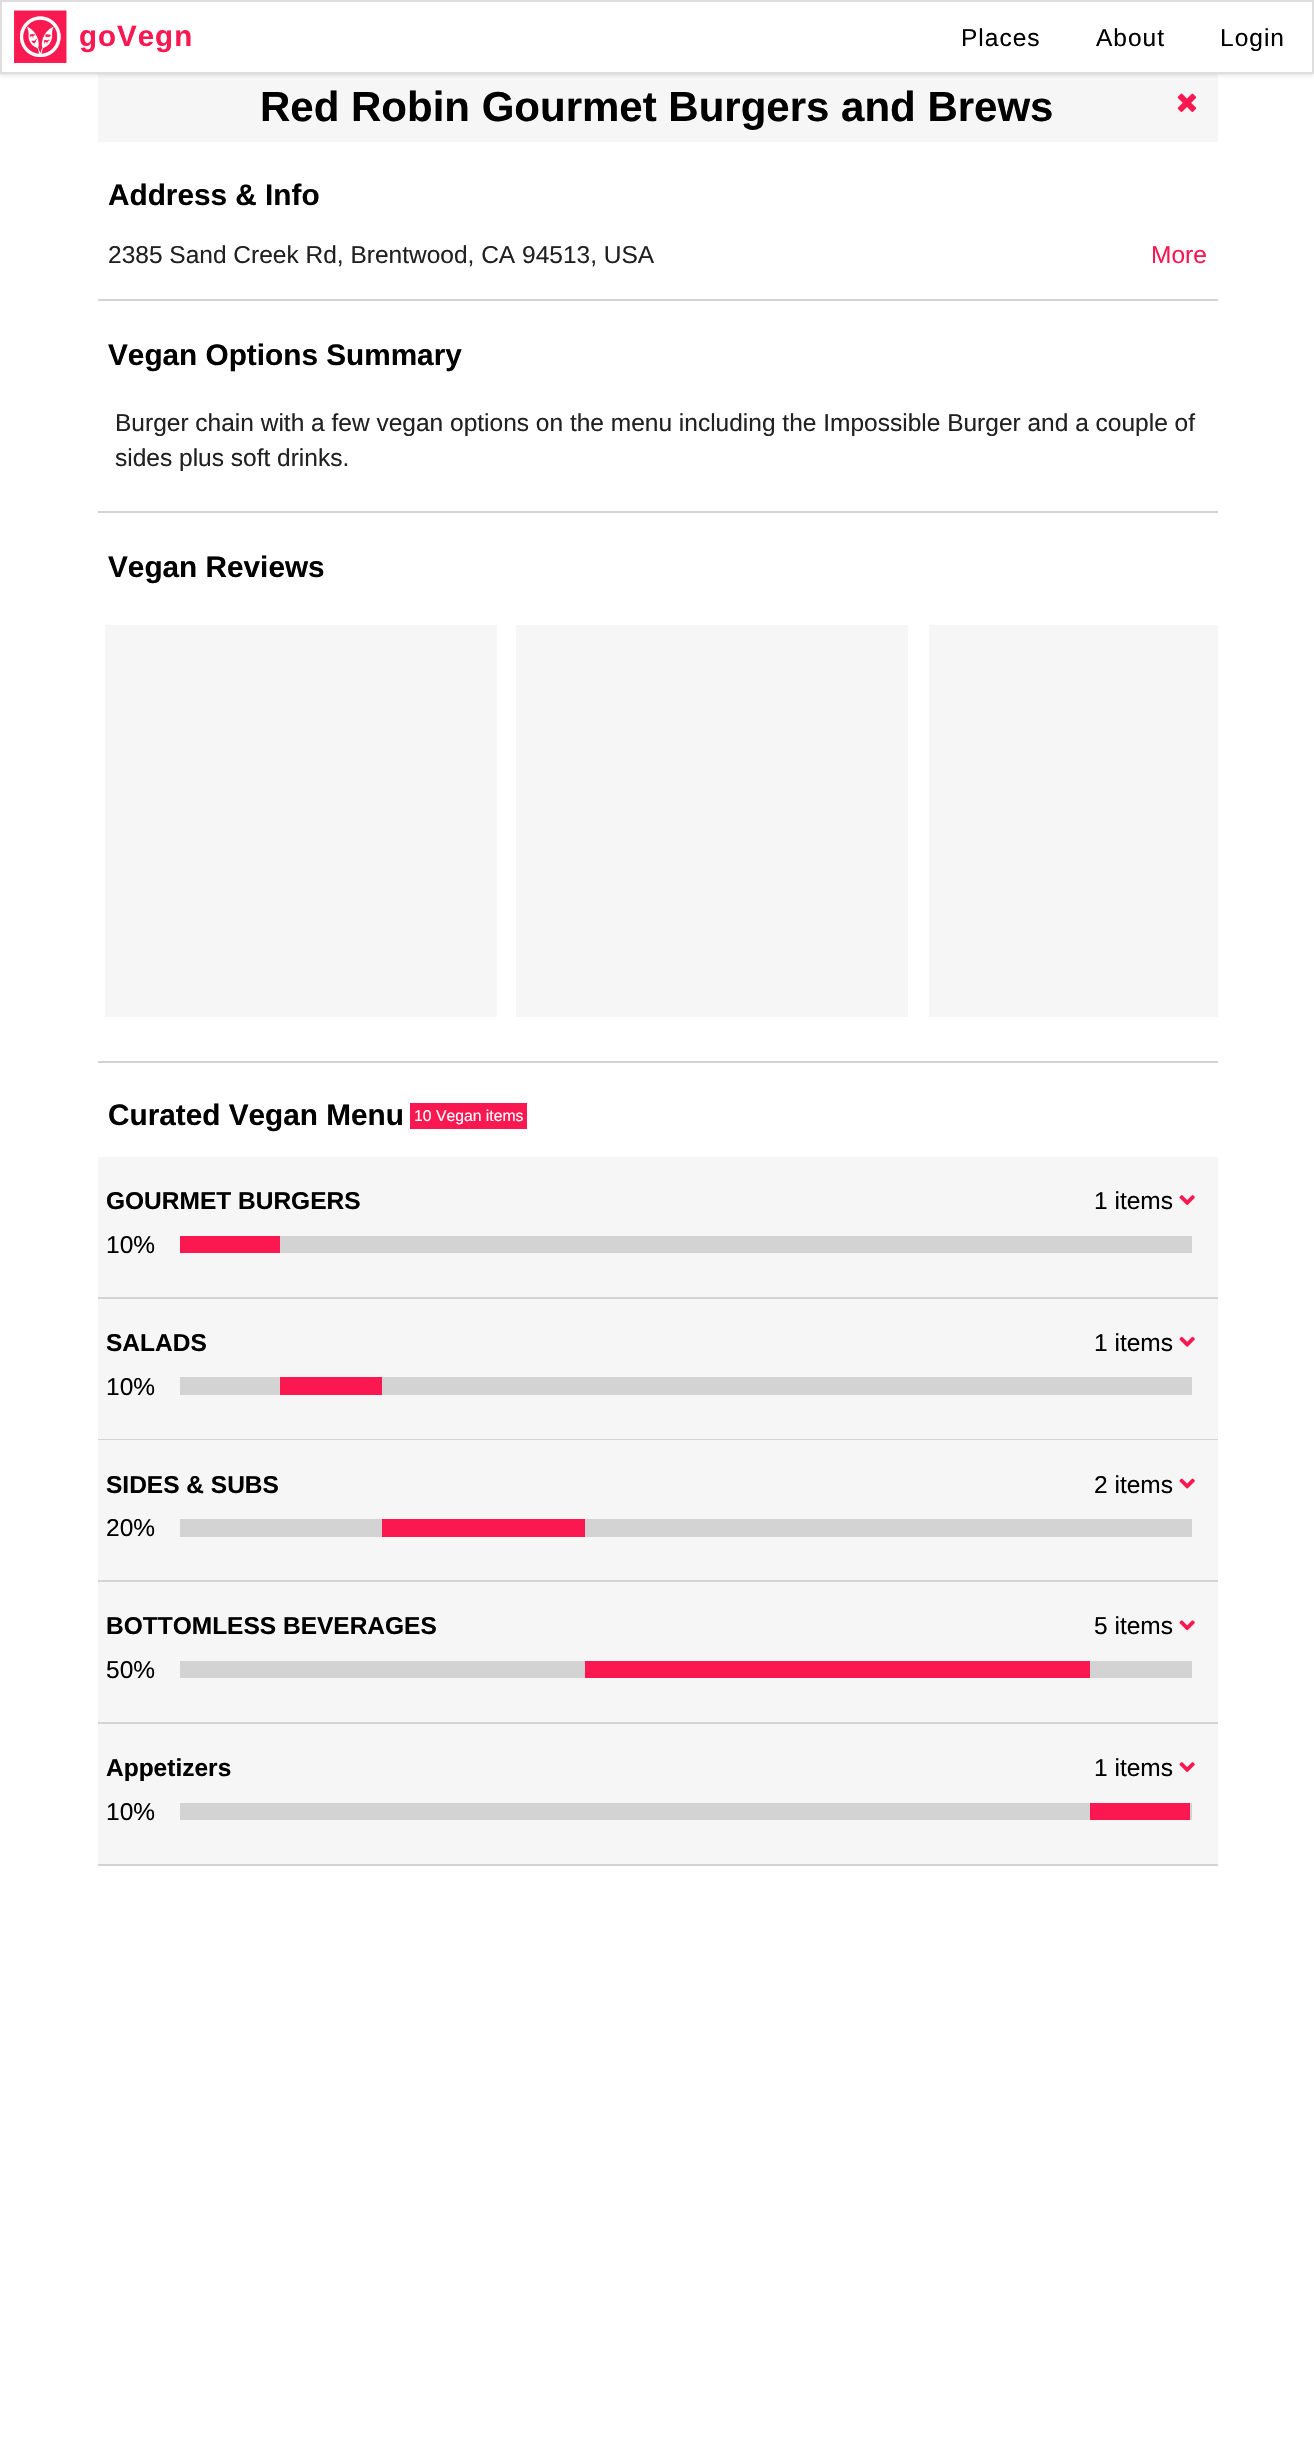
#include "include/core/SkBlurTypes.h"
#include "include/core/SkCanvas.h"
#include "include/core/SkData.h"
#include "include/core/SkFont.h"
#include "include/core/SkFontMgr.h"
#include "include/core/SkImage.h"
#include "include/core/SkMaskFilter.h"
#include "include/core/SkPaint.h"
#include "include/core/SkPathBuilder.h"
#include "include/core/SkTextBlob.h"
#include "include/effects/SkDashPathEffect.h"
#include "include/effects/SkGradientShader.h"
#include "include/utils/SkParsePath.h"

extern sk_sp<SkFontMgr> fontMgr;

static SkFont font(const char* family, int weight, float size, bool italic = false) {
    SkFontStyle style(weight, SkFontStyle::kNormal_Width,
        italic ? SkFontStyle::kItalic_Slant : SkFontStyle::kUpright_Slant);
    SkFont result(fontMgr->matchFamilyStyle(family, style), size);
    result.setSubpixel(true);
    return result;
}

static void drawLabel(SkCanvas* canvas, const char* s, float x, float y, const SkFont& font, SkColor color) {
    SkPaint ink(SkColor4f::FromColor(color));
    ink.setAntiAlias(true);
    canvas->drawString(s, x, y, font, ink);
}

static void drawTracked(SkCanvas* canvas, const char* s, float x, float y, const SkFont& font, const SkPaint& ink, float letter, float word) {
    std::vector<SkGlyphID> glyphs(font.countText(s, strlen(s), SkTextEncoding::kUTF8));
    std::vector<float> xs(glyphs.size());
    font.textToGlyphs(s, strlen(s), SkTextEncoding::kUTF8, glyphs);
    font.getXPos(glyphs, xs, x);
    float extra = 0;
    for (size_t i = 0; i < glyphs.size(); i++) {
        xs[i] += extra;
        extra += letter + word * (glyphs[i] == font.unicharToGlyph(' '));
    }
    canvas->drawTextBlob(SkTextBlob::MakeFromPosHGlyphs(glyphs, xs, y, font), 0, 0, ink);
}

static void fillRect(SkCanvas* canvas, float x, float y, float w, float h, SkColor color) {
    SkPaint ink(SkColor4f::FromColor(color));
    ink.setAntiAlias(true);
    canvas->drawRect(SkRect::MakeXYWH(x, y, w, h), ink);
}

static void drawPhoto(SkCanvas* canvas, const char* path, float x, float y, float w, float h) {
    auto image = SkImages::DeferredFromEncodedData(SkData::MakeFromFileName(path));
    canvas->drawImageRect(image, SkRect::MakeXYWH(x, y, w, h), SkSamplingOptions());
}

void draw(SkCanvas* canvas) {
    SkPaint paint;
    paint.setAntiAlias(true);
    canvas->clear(0xFFFFFFFF);
    fillRect(canvas, 98, 74, 1120, 68, 0xFFF6F6F6);
    paint.setColor(0x26222426);
    paint.setMaskFilter(SkMaskFilter::MakeBlur(kNormal_SkBlurStyle, 2));
    canvas->drawRect(SkRect::MakeXYWH(0, 2, 1314, 73), paint);
    paint.setMaskFilter(nullptr);
    paint.setColor(0xFFFFFFFF);
    canvas->drawRect(SkRect::MakeXYWH(1, 1, 1312, 72), paint);
    paint.setStroke(true);
    paint.setStrokeWidth(2);
    paint.setColor(0xFFDEDEDE);
    canvas->drawRect(SkRect::MakeXYWH(1, 1, 1312, 72), paint);
    drawPhoto(canvas, "assets/img1.png", 14, 10, 53, 53);
    SkFont font1 = font("Liberation Sans", 700, 29.5f);
    paint.setStroke(false);
    paint.setColor(0xFFFB1851);
    drawTracked(canvas, "goVegn", 79, 46, font1, paint, 1, 0);
    SkFont font2 = font("Liberation Sans", 400, 24.5f);
    paint.setColor(0xFF000000);
    drawTracked(canvas, "Places", 961, 46, font2, paint, 1, 0);
    drawTracked(canvas, "About", 1096, 46, font2, paint, 1, 0);
    drawTracked(canvas, "Login", 1220, 46, font2, paint, 1, 0);
    SkFont font3 = font("Liberation Sans", 700, 42);
    drawLabel(canvas, "Red Robin Gourmet Burgers and Brews", 260, 121, font3, 0xFF000000);
    drawPhoto(canvas, "assets/img2.png", 1177, 93, 20, 19);
    SkFont font4 = font("Liberation Sans", 700, 29.75f);
    drawLabel(canvas, "Address & Info", 108, 205, font4, 0xFF000000);
    drawLabel(canvas, "2385 Sand Creek Rd, Brentwood, CA 94513, USA", 108, 263, font2, 0xFF212121);
    drawLabel(canvas, "More", 1151, 263, font2, 0xFFFB1851);
    fillRect(canvas, 98, 299, 1120, 2, 0xFFD3D3D3);
    drawLabel(canvas, "Vegan Options Summary", 108, 365, font4, 0xFF000000);
    drawLabel(canvas, "Burger chain with a few vegan options on the menu including the Impossible Burger and a couple of", 115, 431, font2, 0xFF212121);
    drawLabel(canvas, "sides plus soft drinks.", 115, 466, font2, 0xFF212121);
    fillRect(canvas, 98, 511, 1120, 2, 0xFFD3D3D3);
    drawLabel(canvas, "Vegan Reviews", 108, 577, font4, 0xFF000000);
    fillRect(canvas, 105, 625, 392, 392, 0xFFF6F6F6);
    fillRect(canvas, 516, 625, 392, 392, 0xFFF6F6F6);
    fillRect(canvas, 929, 625, 289, 392, 0xFFF6F6F6);
    fillRect(canvas, 98, 1061, 1120, 2, 0xFFD3D3D3);
    drawLabel(canvas, "Curated Vegan Menu", 108, 1125, font4, 0xFF000000);
    fillRect(canvas, 410, 1103, 117, 26, 0xFFFB1851);
    SkFont font5 = font("Liberation Sans", 400, 15.75f);
    drawLabel(canvas, "10 Vegan items", 414, 1121, font5, 0xFFFFFFFF);
    fillRect(canvas, 98, 1157, 1120, 140, 0xFFF6F6F6);
    SkFont font6 = font("Liberation Sans", 700, 24.5f);
    drawLabel(canvas, "GOURMET BURGERS", 106, 1209, font6, 0xFF000000);
    drawLabel(canvas, "1 items", 1094, 1209, font2, 0xFF000000);
    drawLabel(canvas, "10%", 106, 1253, font2, 0xFF000000);
    fillRect(canvas, 280, 1236, 912, 17, 0xFFD3D3D3);
    fillRect(canvas, 180, 1236, 100, 17, 0xFFFB1851);
    drawPhoto(canvas, "assets/img3.png", 1179, 1195, 16, 10);
    fillRect(canvas, 98, 1297, 1120, 2, 0xFFD3D3D3);
    fillRect(canvas, 98, 1299, 1120, 140, 0xFFF6F6F6);
    drawLabel(canvas, "SALADS", 106, 1351, font6, 0xFF000000);
    drawLabel(canvas, "1 items", 1094, 1351, font2, 0xFF000000);
    drawLabel(canvas, "10%", 106, 1395, font2, 0xFF000000);
    fillRect(canvas, 180, 1377, 1012, 18, 0xFFD3D3D3);
    fillRect(canvas, 280, 1377, 102, 18, 0xFFFB1851);
    drawPhoto(canvas, "assets/img4.png", 1179, 1336, 16, 11);
    fillRect(canvas, 98, 1439, 1120, 1, 0xFFD3D3D3);
    fillRect(canvas, 98, 1440, 1120, 140, 0xFFF6F6F6);
    drawLabel(canvas, "SIDES & SUBS", 106, 1493, font6, 0xFF000000);
    drawLabel(canvas, "2 items", 1094, 1493, font2, 0xFF000000);
    drawLabel(canvas, "20%", 106, 1536, font2, 0xFF000000);
    fillRect(canvas, 180, 1519, 1012, 18, 0xFFD3D3D3);
    fillRect(canvas, 382, 1519, 203, 18, 0xFFFB1851);
    drawPhoto(canvas, "assets/img5.png", 1179, 1478, 16, 11);
    fillRect(canvas, 98, 1580, 1120, 2, 0xFFD3D3D3);
    fillRect(canvas, 98, 1582, 1120, 140, 0xFFF6F6F6);
    drawLabel(canvas, "BOTTOMLESS BEVERAGES", 106, 1634, font6, 0xFF000000);
    drawLabel(canvas, "5 items", 1094, 1634, font2, 0xFF000000);
    drawLabel(canvas, "50%", 106, 1678, font2, 0xFF000000);
    fillRect(canvas, 180, 1661, 1012, 17, 0xFFD3D3D3);
    fillRect(canvas, 585, 1661, 505, 17, 0xFFFB1851);
    drawPhoto(canvas, "assets/img6.png", 1179, 1620, 16, 11);
    fillRect(canvas, 98, 1722, 1120, 2, 0xFFD3D3D3);
    fillRect(canvas, 98, 1724, 1120, 140, 0xFFF6F6F6);
    drawLabel(canvas, "Appetizers", 106, 1776, font6, 0xFF000000);
    drawLabel(canvas, "1 items", 1094, 1776, font2, 0xFF000000);
    drawLabel(canvas, "10%", 106, 1820, font2, 0xFF000000);
    fillRect(canvas, 180, 1803, 1012, 17, 0xFFD3D3D3);
    fillRect(canvas, 1090, 1803, 100, 17, 0xFFFB1851);
    drawPhoto(canvas, "assets/img3.png", 1179, 1762, 16, 10);
    fillRect(canvas, 98, 1864, 1120, 2, 0xFFD3D3D3);
}
